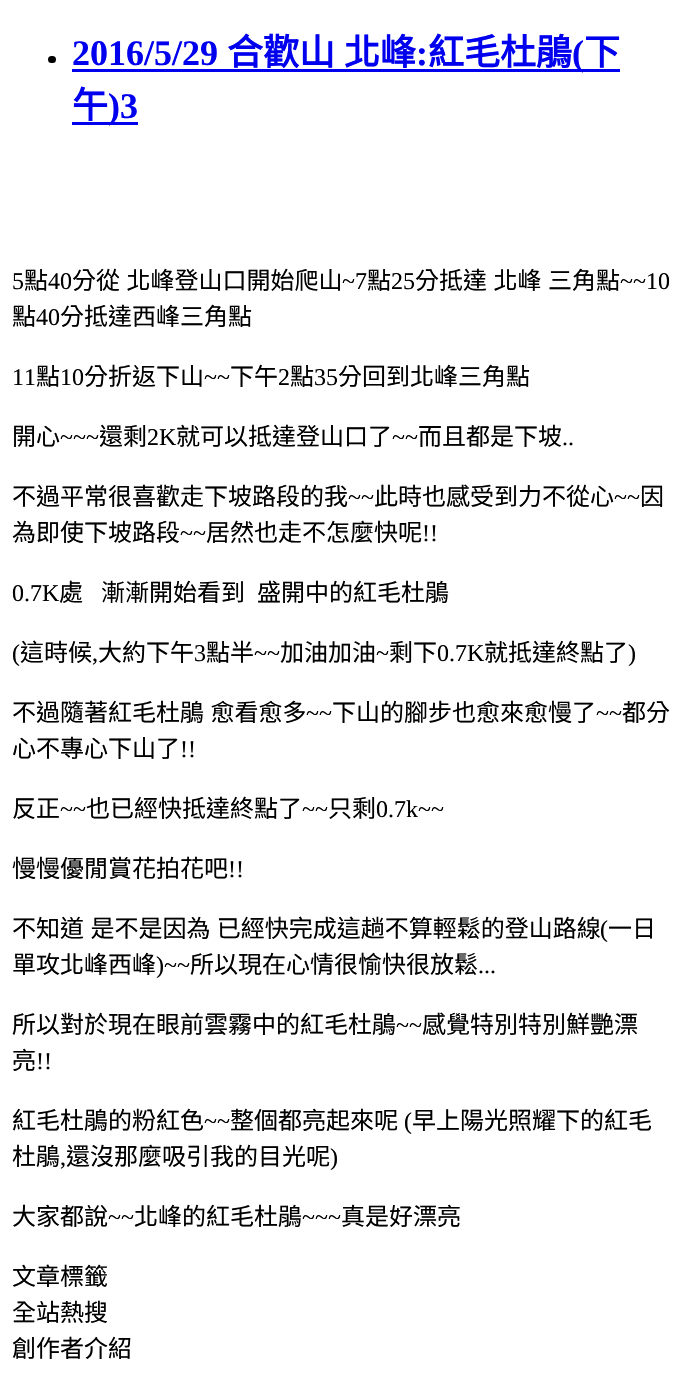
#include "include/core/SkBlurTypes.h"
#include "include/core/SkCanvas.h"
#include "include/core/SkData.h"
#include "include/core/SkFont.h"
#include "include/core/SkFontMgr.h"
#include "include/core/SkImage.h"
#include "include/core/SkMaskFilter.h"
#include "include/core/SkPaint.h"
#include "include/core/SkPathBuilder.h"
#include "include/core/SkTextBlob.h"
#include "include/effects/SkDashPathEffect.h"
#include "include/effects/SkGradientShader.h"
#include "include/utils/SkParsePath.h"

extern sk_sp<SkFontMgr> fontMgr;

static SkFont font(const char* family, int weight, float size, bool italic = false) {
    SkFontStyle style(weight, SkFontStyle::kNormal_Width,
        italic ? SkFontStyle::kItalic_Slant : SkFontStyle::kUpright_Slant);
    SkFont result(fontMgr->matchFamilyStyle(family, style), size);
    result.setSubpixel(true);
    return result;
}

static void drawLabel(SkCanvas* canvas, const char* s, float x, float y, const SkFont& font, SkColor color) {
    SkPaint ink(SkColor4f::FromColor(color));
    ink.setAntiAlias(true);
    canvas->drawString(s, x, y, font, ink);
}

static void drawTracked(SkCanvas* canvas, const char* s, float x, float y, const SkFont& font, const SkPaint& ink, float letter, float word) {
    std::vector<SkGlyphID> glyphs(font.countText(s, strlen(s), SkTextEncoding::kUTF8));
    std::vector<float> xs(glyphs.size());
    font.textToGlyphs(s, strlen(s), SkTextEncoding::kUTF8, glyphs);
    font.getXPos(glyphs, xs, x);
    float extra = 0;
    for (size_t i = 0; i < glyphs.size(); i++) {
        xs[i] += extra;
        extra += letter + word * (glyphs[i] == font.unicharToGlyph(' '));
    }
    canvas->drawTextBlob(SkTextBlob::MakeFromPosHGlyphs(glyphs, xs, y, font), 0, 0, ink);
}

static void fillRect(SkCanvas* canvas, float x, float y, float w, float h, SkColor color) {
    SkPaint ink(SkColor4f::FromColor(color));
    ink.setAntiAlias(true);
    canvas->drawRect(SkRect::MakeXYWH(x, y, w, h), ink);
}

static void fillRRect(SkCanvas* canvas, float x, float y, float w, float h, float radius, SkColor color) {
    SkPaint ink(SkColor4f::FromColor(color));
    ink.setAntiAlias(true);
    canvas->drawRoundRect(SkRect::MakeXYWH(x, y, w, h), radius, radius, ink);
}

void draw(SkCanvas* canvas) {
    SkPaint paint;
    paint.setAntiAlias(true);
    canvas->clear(0xFFFFFFFF);
    fillRRect(canvas, 48, 56, 8, 7, 3.5f, 0xFF000000);
    SkFont font1 = font("Liberation Serif", 700, 36);
    drawLabel(canvas, "2016/5/29", 72, 65, font1, 0xFF0000EE);
    SkFont font2 = font("Noto Sans CJK TC", 700, 36);
    drawLabel(canvas, "合歡山", 227, 65, font2, 0xFF0000EE);
    drawLabel(canvas, "北峰", 344, 65, font2, 0xFF0000EE);
    drawLabel(canvas, ":", 416, 65, font1, 0xFF0000EE);
    fillRect(canvas, 72, 69, 548, 3, 0xFF0000EE);
    drawLabel(canvas, "紅毛杜鵑", 428, 65, font2, 0xFF0000EE);
    drawLabel(canvas, "(", 572, 65, font1, 0xFF0000EE);
    drawLabel(canvas, "下", 584, 65, font2, 0xFF0000EE);
    drawLabel(canvas, "午", 72, 118, font2, 0xFF0000EE);
    fillRect(canvas, 72, 122, 66, 3, 0xFF0000EE);
    drawLabel(canvas, ")3", 108, 118, font1, 0xFF0000EE);
    SkFont font3 = font("Liberation Serif", 400, 24);
    drawLabel(canvas, "5", 12, 289, font3, 0xFF000000);
    SkFont font4 = font("Noto Sans CJK TC", 400, 24);
    drawLabel(canvas, "點", 24, 289, font4, 0xFF000000);
    drawLabel(canvas, "40", 48, 289, font3, 0xFF000000);
    paint.setColor(0xFF000000);
    drawTracked(canvas, "分從 北峰登山口開始爬山", 72, 289, font4, paint, 0, 1);
    drawLabel(canvas, "~7", 342, 289, font3, 0xFF000000);
    drawLabel(canvas, "點", 367, 289, font4, 0xFF000000);
    drawLabel(canvas, "25", 391, 289, font3, 0xFF000000);
    drawTracked(canvas, "分抵達 北峰", 415, 289, font4, paint, 0, 1);
    drawLabel(canvas, "三角點", 548, 289, font4, 0xFF000000);
    drawLabel(canvas, "~~10", 620, 289, font3, 0xFF000000);
    drawLabel(canvas, "點", 12, 325, font4, 0xFF000000);
    drawLabel(canvas, "40", 36, 325, font3, 0xFF000000);
    drawLabel(canvas, "分抵達西峰三角點", 60, 325, font4, 0xFF000000);
    drawLabel(canvas, "11", 12, 385, font3, 0xFF000000);
    drawLabel(canvas, "點", 36, 385, font4, 0xFF000000);
    drawLabel(canvas, "10", 60, 385, font3, 0xFF000000);
    drawLabel(canvas, "分折返下山", 84, 385, font4, 0xFF000000);
    drawLabel(canvas, "~~", 204, 385, font3, 0xFF000000);
    drawLabel(canvas, "下午", 230, 385, font4, 0xFF000000);
    drawLabel(canvas, "2", 278, 385, font3, 0xFF000000);
    drawLabel(canvas, "點", 290, 385, font4, 0xFF000000);
    drawLabel(canvas, "35", 314, 385, font3, 0xFF000000);
    drawLabel(canvas, "分回到北峰三角點", 338, 385, font4, 0xFF000000);
    drawLabel(canvas, "開心", 12, 445, font4, 0xFF000000);
    drawLabel(canvas, "~~~", 60, 445, font3, 0xFF000000);
    drawLabel(canvas, "還剩", 99, 445, font4, 0xFF000000);
    drawLabel(canvas, "2K", 147, 445, font3, 0xFF000000);
    drawLabel(canvas, "就可以抵達登山口了", 176, 445, font4, 0xFF000000);
    drawLabel(canvas, "~~", 392, 445, font3, 0xFF000000);
    drawLabel(canvas, "而且都是下坡", 418, 445, font4, 0xFF000000);
    drawLabel(canvas, "..", 562, 445, font3, 0xFF000000);
    drawLabel(canvas, "不過平常很喜歡走下坡路段的我", 12, 505, font4, 0xFF000000);
    drawLabel(canvas, "~~", 348, 505, font3, 0xFF000000);
    drawLabel(canvas, "此時也感受到力不從心", 374, 505, font4, 0xFF000000);
    drawLabel(canvas, "~~", 614, 505, font3, 0xFF000000);
    drawLabel(canvas, "因", 640, 505, font4, 0xFF000000);
    drawLabel(canvas, "為即使下坡路段", 12, 541, font4, 0xFF000000);
    drawLabel(canvas, "~~", 180, 541, font3, 0xFF000000);
    drawLabel(canvas, "居然也走不怎麼快呢", 206, 541, font4, 0xFF000000);
    drawLabel(canvas, "!!", 422, 541, font3, 0xFF000000);
    drawLabel(canvas, "0.7K", 12, 601, font3, 0xFF000000);
    drawLabel(canvas, "處", 59, 601, font4, 0xFF000000);
    drawLabel(canvas, "漸漸開始看到", 101, 601, font4, 0xFF000000);
    drawLabel(canvas, "盛開中的紅毛杜鵑", 257, 601, font4, 0xFF000000);
    drawLabel(canvas, "(", 12, 661, font3, 0xFF000000);
    drawLabel(canvas, "這時候", 20, 661, font4, 0xFF000000);
    drawLabel(canvas, "大約下午", 98, 661, font4, 0xFF000000);
    drawLabel(canvas, "3", 194, 661, font3, 0xFF000000);
    drawLabel(canvas, "點半", 206, 661, font4, 0xFF000000);
    drawLabel(canvas, "~~", 254, 661, font3, 0xFF000000);
    drawLabel(canvas, "加油加油", 280, 661, font4, 0xFF000000);
    drawLabel(canvas, "~", 376, 661, font3, 0xFF000000);
    drawLabel(canvas, "剩下", 389, 661, font4, 0xFF000000);
    drawLabel(canvas, "0.7K", 437, 661, font3, 0xFF000000);
    drawLabel(canvas, "就抵達終點了", 484, 661, font4, 0xFF000000);
    drawLabel(canvas, ")", 628, 661, font3, 0xFF000000);
    drawLabel(canvas, ",", 92, 661, font3, 0xFF000000);
    drawTracked(canvas, "不過隨著紅毛杜鵑 愈看愈多", 12, 721, font4, paint, 0, 1);
    drawLabel(canvas, "~~", 306, 721, font3, 0xFF000000);
    drawLabel(canvas, "下山的腳步也愈來愈慢了", 332, 721, font4, 0xFF000000);
    drawLabel(canvas, "~~", 596, 721, font3, 0xFF000000);
    drawLabel(canvas, "都分", 622, 721, font4, 0xFF000000);
    drawLabel(canvas, "心不專心下山了", 12, 757, font4, 0xFF000000);
    drawLabel(canvas, "!!", 180, 757, font3, 0xFF000000);
    drawLabel(canvas, "反正", 12, 817, font4, 0xFF000000);
    drawLabel(canvas, "~~", 60, 817, font3, 0xFF000000);
    drawLabel(canvas, "也已經快抵達終點了", 86, 817, font4, 0xFF000000);
    drawLabel(canvas, "~~", 302, 817, font3, 0xFF000000);
    drawLabel(canvas, "只剩", 328, 817, font4, 0xFF000000);
    drawLabel(canvas, "0.7k~~", 376, 817, font3, 0xFF000000);
    drawLabel(canvas, "慢慢優閒賞花拍花吧", 12, 877, font4, 0xFF000000);
    drawLabel(canvas, "!!", 228, 877, font3, 0xFF000000);
    drawTracked(canvas, "不知道 是不是因為 已經快完成這趟不算輕鬆的登山路線", 12, 937, font4, paint, 0, 1);
    drawLabel(canvas, "(", 600, 937, font3, 0xFF000000);
    drawLabel(canvas, "一日", 608, 937, font4, 0xFF000000);
    drawLabel(canvas, "單攻北峰西峰", 12, 973, font4, 0xFF000000);
    drawLabel(canvas, ")~~", 156, 973, font3, 0xFF000000);
    drawLabel(canvas, "所以現在心情很愉快很放鬆", 190, 973, font4, 0xFF000000);
    drawLabel(canvas, "...", 478, 973, font3, 0xFF000000);
    drawLabel(canvas, "所以對於現在眼前雲霧中的紅毛杜鵑", 12, 1033, font4, 0xFF000000);
    drawLabel(canvas, "~~", 396, 1033, font3, 0xFF000000);
    drawLabel(canvas, "感覺特別特別鮮艷漂", 422, 1033, font4, 0xFF000000);
    drawLabel(canvas, "亮", 12, 1069, font4, 0xFF000000);
    drawLabel(canvas, "!!", 36, 1069, font3, 0xFF000000);
    drawLabel(canvas, "紅毛杜鵑的粉紅色", 12, 1129, font4, 0xFF000000);
    drawLabel(canvas, "~~", 204, 1129, font3, 0xFF000000);
    drawLabel(canvas, "整個都亮起來呢", 230, 1129, font4, 0xFF000000);
    drawLabel(canvas, "(", 404, 1129, font3, 0xFF000000);
    drawLabel(canvas, "早上陽光照耀下的紅毛", 412, 1129, font4, 0xFF000000);
    drawLabel(canvas, "杜鵑", 12, 1165, font4, 0xFF000000);
    drawLabel(canvas, ",", 60, 1165, font3, 0xFF000000);
    drawLabel(canvas, "還沒那麼吸引我的目光呢", 66, 1165, font4, 0xFF000000);
    drawLabel(canvas, ")", 330, 1165, font3, 0xFF000000);
    drawLabel(canvas, "大家都說", 12, 1225, font4, 0xFF000000);
    drawLabel(canvas, "~~", 108, 1225, font3, 0xFF000000);
    drawLabel(canvas, "北峰的紅毛杜鵑", 134, 1225, font4, 0xFF000000);
    drawLabel(canvas, "~~~", 302, 1225, font3, 0xFF000000);
    drawLabel(canvas, "真是好漂亮", 341, 1225, font4, 0xFF000000);
    drawLabel(canvas, "文章標籤", 12, 1285, font4, 0xFF000000);
    drawLabel(canvas, "全站熱搜", 12, 1321, font4, 0xFF000000);
    drawLabel(canvas, "創作者介紹", 12, 1357, font4, 0xFF000000);
}
